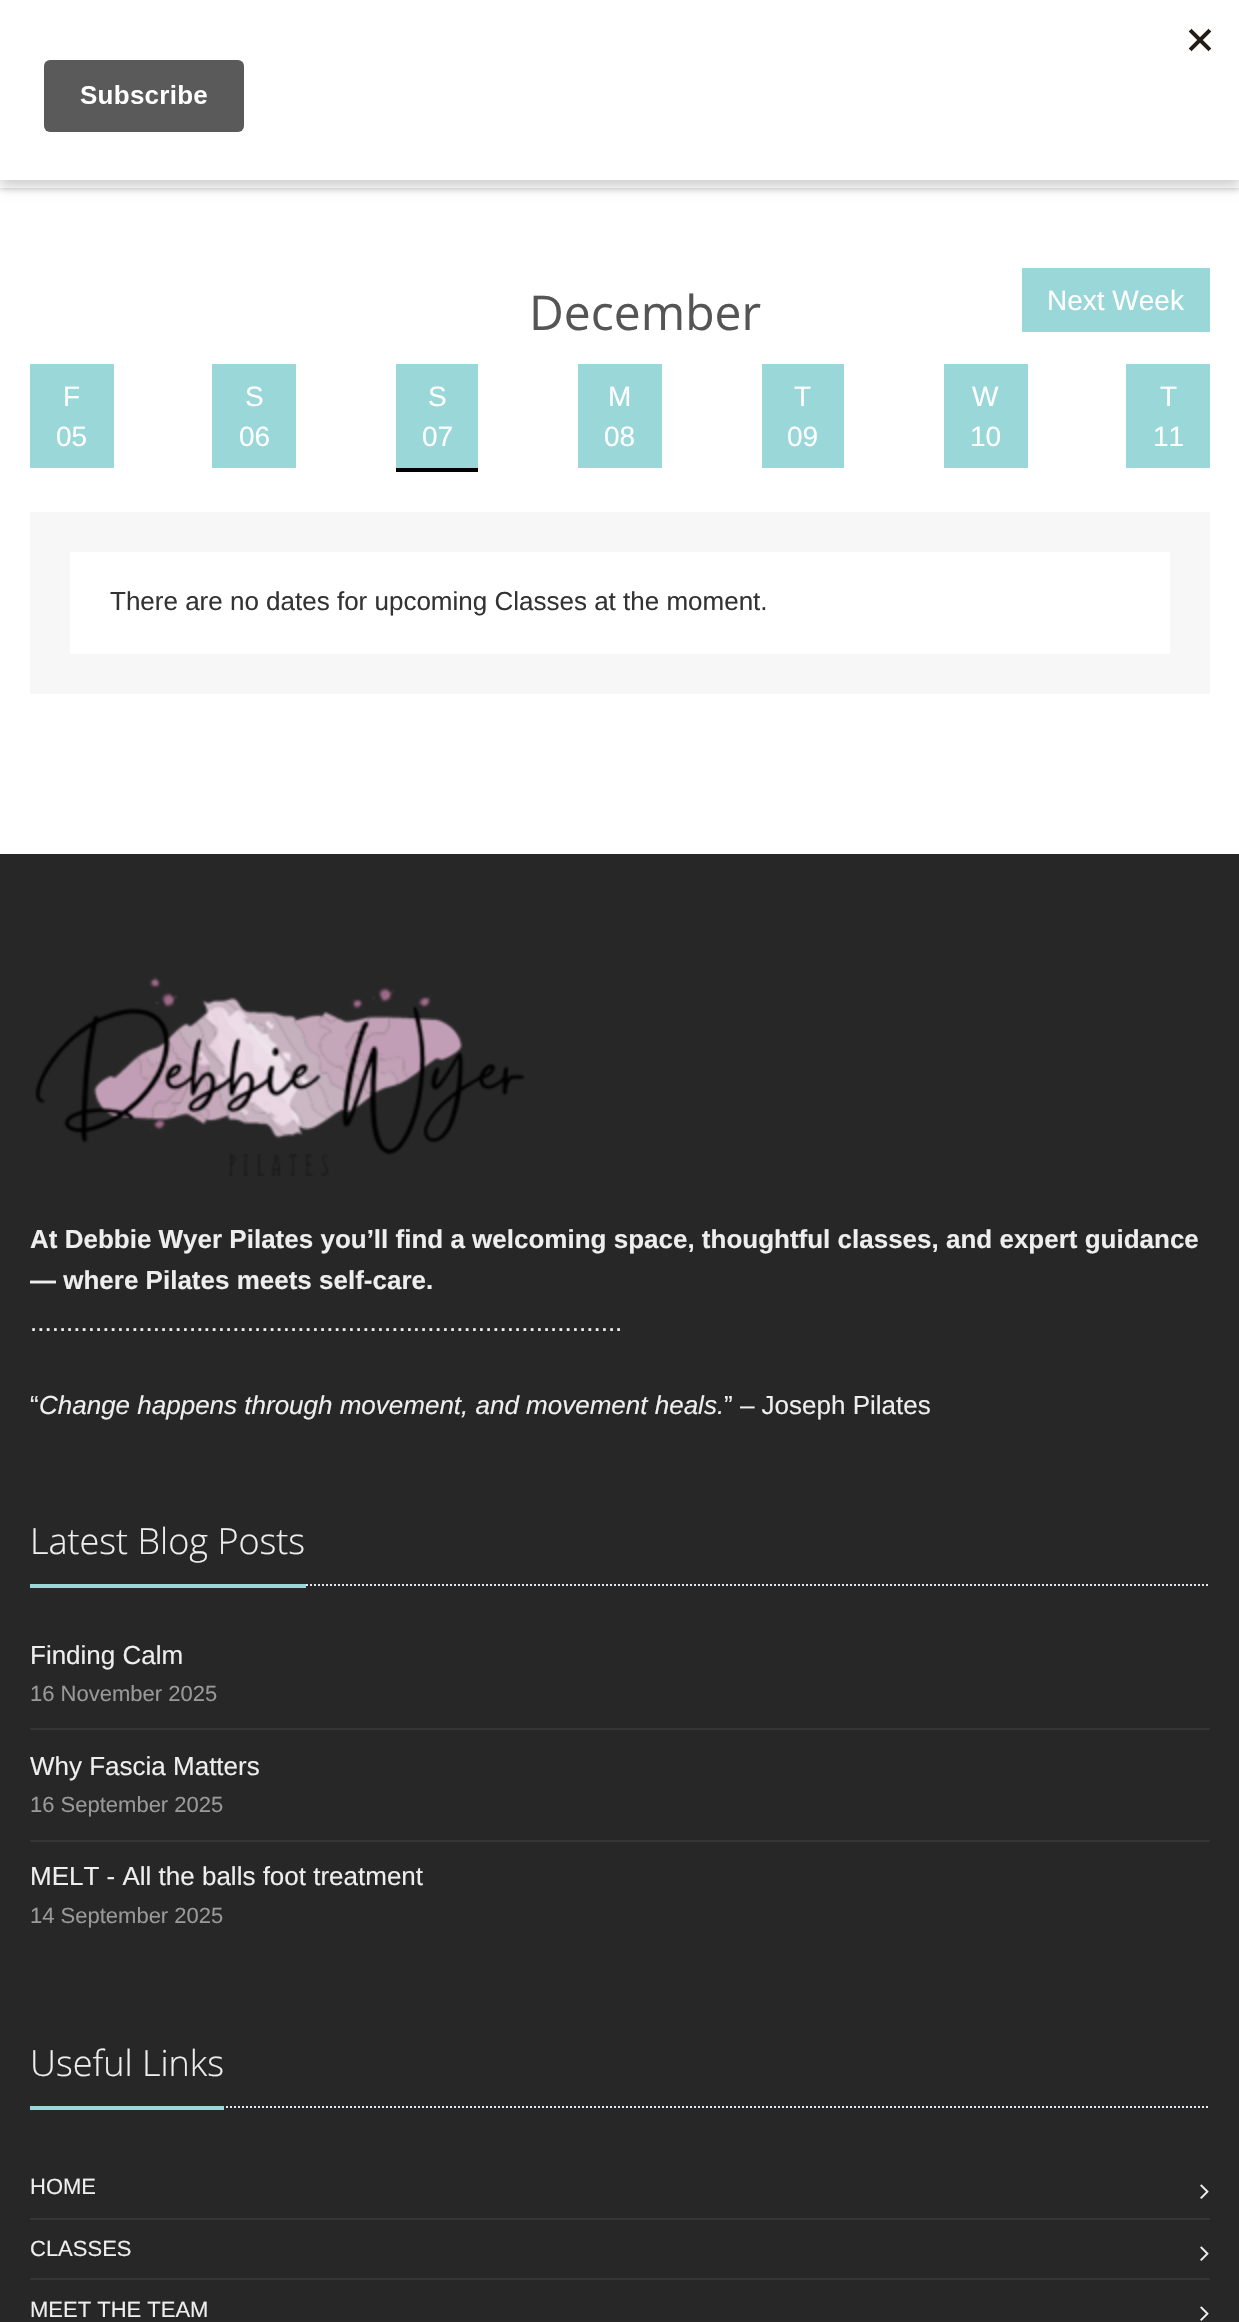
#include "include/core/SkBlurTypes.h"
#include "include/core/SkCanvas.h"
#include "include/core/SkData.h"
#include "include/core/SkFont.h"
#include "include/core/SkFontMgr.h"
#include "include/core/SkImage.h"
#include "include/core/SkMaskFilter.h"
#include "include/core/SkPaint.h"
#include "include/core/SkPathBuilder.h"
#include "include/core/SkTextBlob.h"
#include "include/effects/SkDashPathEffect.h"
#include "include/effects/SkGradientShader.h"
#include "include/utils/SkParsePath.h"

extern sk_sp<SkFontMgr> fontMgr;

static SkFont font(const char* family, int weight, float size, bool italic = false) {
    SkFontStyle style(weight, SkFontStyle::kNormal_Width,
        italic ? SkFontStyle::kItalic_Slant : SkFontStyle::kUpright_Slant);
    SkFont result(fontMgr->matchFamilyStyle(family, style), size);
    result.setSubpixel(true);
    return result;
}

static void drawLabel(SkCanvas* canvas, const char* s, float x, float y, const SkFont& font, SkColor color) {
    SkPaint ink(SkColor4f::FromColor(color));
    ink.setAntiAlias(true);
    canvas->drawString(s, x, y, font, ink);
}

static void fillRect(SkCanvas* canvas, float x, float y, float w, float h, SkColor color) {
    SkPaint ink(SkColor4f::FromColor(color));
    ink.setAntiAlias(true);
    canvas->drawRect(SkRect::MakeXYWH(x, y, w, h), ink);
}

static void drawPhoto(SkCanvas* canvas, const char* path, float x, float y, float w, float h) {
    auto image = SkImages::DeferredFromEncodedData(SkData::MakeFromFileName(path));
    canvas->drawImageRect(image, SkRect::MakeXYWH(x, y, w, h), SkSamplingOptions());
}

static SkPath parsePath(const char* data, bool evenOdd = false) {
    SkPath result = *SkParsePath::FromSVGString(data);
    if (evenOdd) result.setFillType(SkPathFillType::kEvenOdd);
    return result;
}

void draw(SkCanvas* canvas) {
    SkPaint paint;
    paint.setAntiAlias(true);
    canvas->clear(0xFFFFFFFF);
    paint.setColor(0x33000000);
    paint.setMaskFilter(SkMaskFilter::MakeBlur(kNormal_SkBlurStyle, 6));
    canvas->drawRect(SkRect::MakeXYWH(0, 6, 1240, 180), paint);
    paint.setMaskFilter(nullptr);
    canvas->save();
    canvas->clipRect(SkRect::MakeXYWH(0, 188, 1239, 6));
    paint.setColor(0xFFBBBBBB);
    paint.setMaskFilter(SkMaskFilter::MakeBlur(kNormal_SkBlurStyle, 3));
    canvas->drawRect(SkRect::MakeXYWH(0, 0, 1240, 188), paint);
    paint.setMaskFilter(nullptr);
    canvas->restore();
    fillRect(canvas, 0, 0, 1239, 180, 0xFFFFFFFF);
    drawPhoto(canvas, "assets/img1.png", 44, 28, 1168, 104);
    SkFont font1 = font("Open Sans", 400, 48);
    drawLabel(canvas, "December", 529, 330, font1, 0xFF555555);
    fillRect(canvas, 1022, 268, 188, 64, 0xFF99D7D9);
    SkFont font2 = font("Liberation Sans", 400, 28);
    drawLabel(canvas, "Next Week", 1047, 310, font2, 0xFFFFFFFF);
    fillRect(canvas, 30, 364, 84, 104, 0xFF99D7D9);
    drawLabel(canvas, "F", 63, 406, font2, 0xFFFFFFFF);
    drawLabel(canvas, "05", 56, 446, font2, 0xFFFFFFFF);
    fillRect(canvas, 212, 364, 84, 104, 0xFF99D7D9);
    drawLabel(canvas, "S", 245, 406, font2, 0xFFFFFFFF);
    drawLabel(canvas, "06", 239, 446, font2, 0xFFFFFFFF);
    fillRect(canvas, 396, 364, 82, 104, 0xFF99D7D9);
    drawLabel(canvas, "S", 428, 406, font2, 0xFFFFFFFF);
    drawLabel(canvas, "07", 422, 446, font2, 0xFFFFFFFF);
    fillRect(canvas, 396, 468, 82, 4, 0xFF000000);
    fillRect(canvas, 578, 364, 84, 104, 0xFF99D7D9);
    drawLabel(canvas, "M", 608, 406, font2, 0xFFFFFFFF);
    drawLabel(canvas, "08", 604, 446, font2, 0xFFFFFFFF);
    fillRect(canvas, 762, 364, 82, 104, 0xFF99D7D9);
    drawLabel(canvas, "T", 794, 406, font2, 0xFFFFFFFF);
    drawLabel(canvas, "09", 787, 446, font2, 0xFFFFFFFF);
    fillRect(canvas, 944, 364, 84, 104, 0xFF99D7D9);
    drawLabel(canvas, "W", 972, 406, font2, 0xFFFFFFFF);
    drawLabel(canvas, "10", 970, 446, font2, 0xFFFFFFFF);
    fillRect(canvas, 1126, 364, 84, 104, 0xFF99D7D9);
    drawLabel(canvas, "T", 1160, 406, font2, 0xFFFFFFFF);
    drawLabel(canvas, "11", 1153, 446, font2, 0xFFFFFFFF);
    fillRect(canvas, 30, 512, 1180, 182, 0xFFF7F7F7);
    fillRect(canvas, 70, 552, 1100, 102, 0xFFFFFFFF);
    SkFont font3 = font("Liberation Sans", 400, 26);
    drawLabel(canvas, "There are no dates for upcoming Classes at the moment.", 110, 610, font3, 0xFF333333);
    fillRect(canvas, 0, 854, 1239, 1468, 0xFF272727);
    drawPhoto(canvas, "assets/img2.png", 35, 976, 490, 200);
    SkFont font4 = font("Liberation Sans", 700, 26);
    drawLabel(canvas, "At Debbie Wyer Pilates you’ll find a welcoming space, thoughtful classes, and expert guidance", 30, 1248, font4, 0xFFEEEEEE);
    drawLabel(canvas, "— where Pilates meets self-care.", 30, 1289, font4, 0xFFEEEEEE);
    drawLabel(canvas, "..................................................................................", 30, 1331, font3, 0xFFEEEEEE);
    drawLabel(canvas, "“", 30, 1414, font3, 0xFFEEEEEE);
    SkFont font5 = font("Liberation Sans", 400, 26, true);
    drawLabel(canvas, "Change happens through movement, and movement heals.", 39, 1414, font5, 0xFFEEEEEE);
    drawLabel(canvas, "” – Joseph Pilates", 724, 1414, font3, 0xFFEEEEEE);
    paint.setStroke(true);
    paint.setStrokeWidth(2);
    paint.setColor(0xFFE4E9F0);
    paint.setPathEffect(SkDashPathEffect::Make({{2, 2}}, 0));
    canvas->drawPath(parsePath("M30 1585H1210"), paint);
    paint.setPathEffect(nullptr);
    fillRect(canvas, 30, 1584, 276, 4, 0xFF99D7D9);
    SkFont font6 = font("Open Sans", 300, 36);
    drawLabel(canvas, "Latest Blog Posts", 30, 1554, font6, 0xFFEEEEEE);
    drawLabel(canvas, "Finding Calm", 30, 1664, font3, 0xFFEEEEEE);
    SkFont font7 = font("Liberation Sans", 400, 22);
    drawLabel(canvas, "16 November 2025", 30, 1701, font7, 0xFF999999);
    fillRect(canvas, 30, 1728, 1180, 2, 0xFF353535);
    drawLabel(canvas, "Why Fascia Matters", 30, 1775, font3, 0xFFEEEEEE);
    drawLabel(canvas, "16 September 2025", 30, 1812, font7, 0xFF999999);
    fillRect(canvas, 30, 1840, 1180, 2, 0xFF353535);
    drawLabel(canvas, "MELT - All the balls foot treatment", 30, 1885, font3, 0xFFEEEEEE);
    drawLabel(canvas, "14 September 2025", 30, 1923, font7, 0xFF999999);
    paint.setPathEffect(SkDashPathEffect::Make({{2, 2}}, 0));
    canvas->drawPath(parsePath("M30 2107H1210"), paint);
    paint.setPathEffect(nullptr);
    fillRect(canvas, 30, 2106, 194, 4, 0xFF99D7D9);
    drawLabel(canvas, "Useful Links", 30, 2076, font6, 0xFFEEEEEE);
    drawLabel(canvas, "HOME", 30, 2194, font7, 0xFFEEEEEE);
    drawPhoto(canvas, "assets/img3.png", 1200, 2184, 9, 15);
    fillRect(canvas, 30, 2218, 1180, 2, 0xFF353535);
    drawLabel(canvas, "CLASSES", 30, 2256, font7, 0xFFEEEEEE);
    drawPhoto(canvas, "assets/img3.png", 1200, 2246, 9, 15);
    fillRect(canvas, 30, 2278, 1180, 2, 0xFF353535);
    drawLabel(canvas, "MEET THE TEAM", 30, 2317, font7, 0xFFEEEEEE);
    drawPhoto(canvas, "assets/img3.png", 1200, 2306, 9, 15);
}
